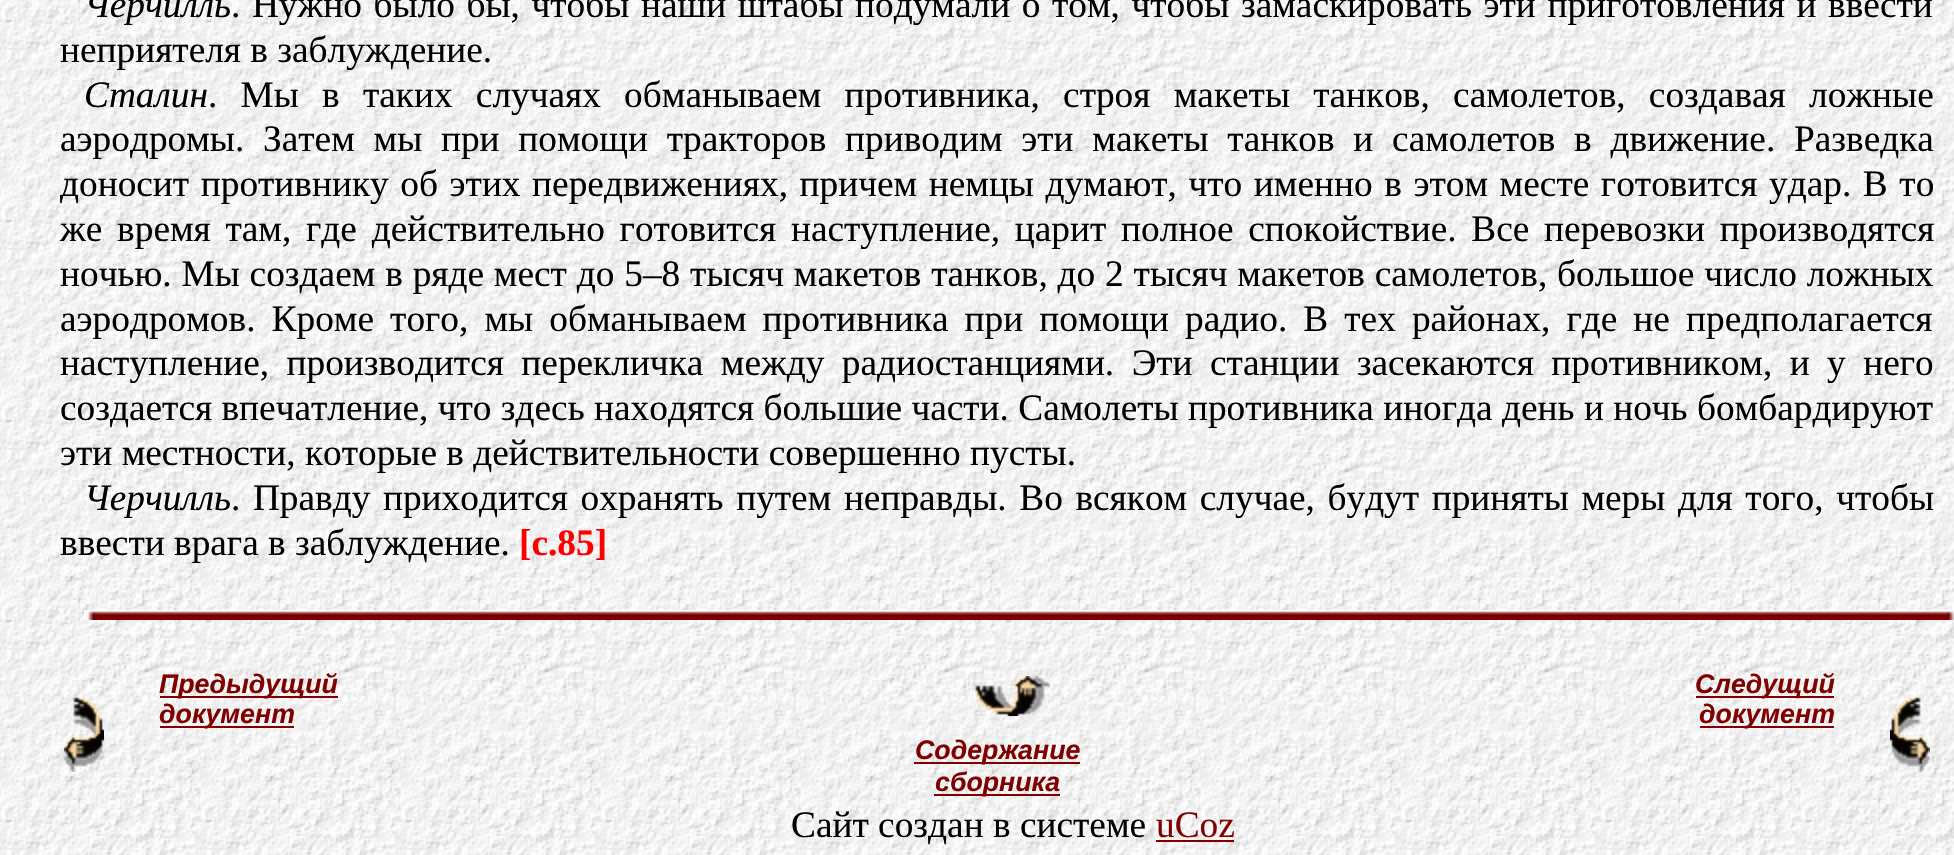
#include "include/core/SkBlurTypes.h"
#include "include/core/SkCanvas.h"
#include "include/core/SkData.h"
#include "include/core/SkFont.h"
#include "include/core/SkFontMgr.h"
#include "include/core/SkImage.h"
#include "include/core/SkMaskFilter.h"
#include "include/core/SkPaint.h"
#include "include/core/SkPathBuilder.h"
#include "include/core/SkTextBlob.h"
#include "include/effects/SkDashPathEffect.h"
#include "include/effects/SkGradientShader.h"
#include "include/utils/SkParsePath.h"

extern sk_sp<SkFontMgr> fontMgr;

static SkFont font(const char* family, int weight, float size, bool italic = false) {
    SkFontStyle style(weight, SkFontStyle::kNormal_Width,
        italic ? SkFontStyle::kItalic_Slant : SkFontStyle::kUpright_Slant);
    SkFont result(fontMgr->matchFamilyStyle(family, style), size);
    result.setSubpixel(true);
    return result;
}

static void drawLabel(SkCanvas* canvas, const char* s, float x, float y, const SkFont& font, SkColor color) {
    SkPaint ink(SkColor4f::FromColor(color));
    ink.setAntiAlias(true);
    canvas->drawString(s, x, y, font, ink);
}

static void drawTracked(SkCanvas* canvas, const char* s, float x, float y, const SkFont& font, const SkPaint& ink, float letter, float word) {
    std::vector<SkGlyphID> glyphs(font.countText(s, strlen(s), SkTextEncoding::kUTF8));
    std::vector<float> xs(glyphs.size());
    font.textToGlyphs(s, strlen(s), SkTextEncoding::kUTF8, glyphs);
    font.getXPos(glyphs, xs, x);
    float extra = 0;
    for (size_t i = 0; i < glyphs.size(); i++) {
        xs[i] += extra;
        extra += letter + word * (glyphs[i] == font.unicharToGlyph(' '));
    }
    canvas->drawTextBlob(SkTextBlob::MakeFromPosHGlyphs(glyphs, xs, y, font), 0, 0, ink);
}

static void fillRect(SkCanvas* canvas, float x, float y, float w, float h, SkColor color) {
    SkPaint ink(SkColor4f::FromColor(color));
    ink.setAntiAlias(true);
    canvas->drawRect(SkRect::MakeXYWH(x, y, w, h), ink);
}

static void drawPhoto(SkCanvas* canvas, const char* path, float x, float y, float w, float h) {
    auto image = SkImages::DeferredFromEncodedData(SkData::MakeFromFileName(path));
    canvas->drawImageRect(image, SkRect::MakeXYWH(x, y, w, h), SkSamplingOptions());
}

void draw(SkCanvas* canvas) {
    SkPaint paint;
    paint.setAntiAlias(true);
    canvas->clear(0xFFFFFFFF);
    drawPhoto(canvas, "assets/img1.png", 0, 0, 1954, 855);
    SkFont font1 = font("Liberation Serif", 400, 37.33f, true);
    drawLabel(canvas, "Черчилль", 84, 17, font1, 0xFF000000);
    SkFont font2 = font("Liberation Serif", 400, 37.33f);
    paint.setColor(0xFF000000);
    drawTracked(canvas, ". Нужно было бы, чтобы наши штабы подумали о том, чтобы замаскировать эти приготовления и ввести", 231, 17, font2, paint, 0, 2.25f);
    drawLabel(canvas, "неприятеля в заблуждение.", 60, 62, font2, 0xFF000000);
    drawLabel(canvas, "Сталин", 84, 107, font1, 0xFF000000);
    drawTracked(canvas, ". Мы в таких случаях обманываем противника, строя макеты танков, самолетов, создавая ложные", 208, 107, font2, paint, 0, 13.9f);
    drawTracked(canvas, "аэродромы. Затем мы при помощи тракторов приводим эти макеты танков и самолетов в движение. Разведка", 60, 151, font2, paint, 0, 9.4f);
    drawTracked(canvas, "доносит противнику об этих передвижениях, причем немцы думают, что именно в этом месте готовится удар. В то", 60, 196, font2, paint, 0, 2.25f);
    drawTracked(canvas, "же время там, где действительно готовится наступление, царит полное спокойствие. Все перевозки производятся", 60, 241, font2, paint, 0, 5.4f);
    drawTracked(canvas, "ночью. Мы создаем в ряде мест до 5–8 тысяч макетов танков, до 2 тысяч макетов самолетов, большое число ложных", 60, 286, font2, paint, 0, 0.5f);
    drawTracked(canvas, "аэродромов. Кроме того, мы обманываем противника при помощи радио. В тех районах, где не предполагается", 60, 331, font2, paint, 0, 6.75f);
    drawTracked(canvas, "наступление, производится перекличка между радиостанциями. Эти станции засекаются противником, и у него", 60, 375, font2, paint, 0, 8.1f);
    drawLabel(canvas, "создается впечатление, что здесь находятся большие части. Самолеты противника иногда день и ночь бомбардируют", 60, 420, font2, 0xFF000000);
    drawLabel(canvas, "эти местности, которые в действительности совершенно пусты.", 60, 465, font2, 0xFF000000);
    drawLabel(canvas, "Черчилль", 84, 510, font1, 0xFF000000);
    drawTracked(canvas, ". Правду приходится охранять путем неправды. Во всяком случае, будут приняты меры для того, чтобы", 231, 510, font2, paint, 0, 3.25f);
    drawLabel(canvas, "ввести врага в заблуждение.", 60, 555, font2, 0xFF000000);
    SkFont font3 = font("Liberation Serif", 700, 37.33f);
    drawLabel(canvas, "[c.85]", 519, 555, font3, 0xFFFF0000);
    drawPhoto(canvas, "assets/img2.png", 84, 610, 1870, 10);
    drawPhoto(canvas, "assets/img3.png", 64, 697, 40, 75);
    fillRect(canvas, 160, 696, 178, 2, 0xFF800000);
    SkFont font4 = font("Liberation Sans", 700, 26.75f, true);
    drawLabel(canvas, "Предыдущий", 159, 693, font4, 0xFF800000);
    fillRect(canvas, 160, 726, 134, 2, 0xFF800000);
    drawLabel(canvas, "документ", 159, 723, font4, 0xFF800000);
    drawPhoto(canvas, "assets/img4.png", 975, 676, 75, 40);
    fillRect(canvas, 1696, 696, 138, 2, 0xFF800000);
    drawLabel(canvas, "Следущий", 1695, 693, font4, 0xFF800000);
    fillRect(canvas, 1700, 726, 134, 2, 0xFF800000);
    drawLabel(canvas, "документ", 1699, 723, font4, 0xFF800000);
    drawPhoto(canvas, "assets/img5.png", 1890, 697, 40, 75);
    fillRect(canvas, 914, 762, 166, 2, 0xFF800000);
    drawLabel(canvas, "Содержание", 915, 759, font4, 0xFF800000);
    fillRect(canvas, 934, 794, 126, 2, 0xFF800000);
    drawLabel(canvas, "сборника", 935, 791, font4, 0xFF800000);
    drawLabel(canvas, "Сайт создан в системе", 791, 837, font2, 0xFF000000);
    drawLabel(canvas, "uCoz", 1156, 837, font2, 0xFF800000);
    fillRect(canvas, 1156, 840, 78, 2, 0xFF800000);
}
